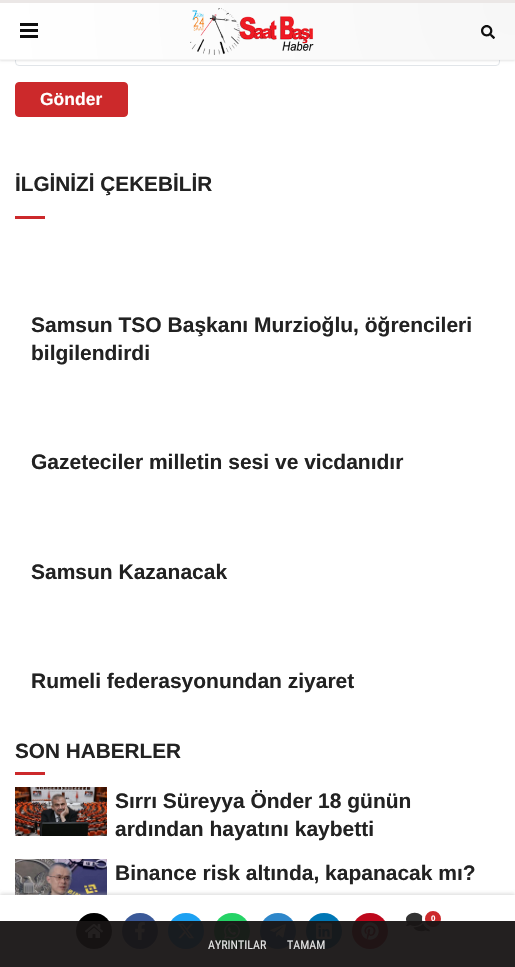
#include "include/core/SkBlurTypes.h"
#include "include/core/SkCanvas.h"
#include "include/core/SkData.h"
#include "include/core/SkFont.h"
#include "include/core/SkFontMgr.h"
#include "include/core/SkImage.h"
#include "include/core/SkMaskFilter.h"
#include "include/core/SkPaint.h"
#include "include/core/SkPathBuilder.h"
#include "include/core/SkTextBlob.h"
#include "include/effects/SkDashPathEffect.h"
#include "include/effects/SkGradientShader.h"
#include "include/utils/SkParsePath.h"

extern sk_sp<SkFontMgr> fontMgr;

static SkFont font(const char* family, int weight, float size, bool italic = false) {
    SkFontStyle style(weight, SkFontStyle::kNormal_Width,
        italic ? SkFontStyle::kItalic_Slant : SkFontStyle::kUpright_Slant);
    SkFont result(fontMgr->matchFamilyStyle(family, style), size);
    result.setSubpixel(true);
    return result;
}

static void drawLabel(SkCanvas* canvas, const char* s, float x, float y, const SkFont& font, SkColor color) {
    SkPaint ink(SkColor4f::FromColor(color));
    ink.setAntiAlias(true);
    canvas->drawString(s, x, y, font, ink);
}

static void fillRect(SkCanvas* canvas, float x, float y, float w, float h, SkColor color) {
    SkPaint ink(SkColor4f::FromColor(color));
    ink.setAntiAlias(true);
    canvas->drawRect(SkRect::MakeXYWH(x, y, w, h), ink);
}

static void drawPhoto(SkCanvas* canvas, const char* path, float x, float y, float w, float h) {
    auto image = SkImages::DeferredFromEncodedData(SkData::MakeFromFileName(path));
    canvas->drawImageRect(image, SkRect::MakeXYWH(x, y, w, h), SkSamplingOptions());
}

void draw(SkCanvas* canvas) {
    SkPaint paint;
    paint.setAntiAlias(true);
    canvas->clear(0xFFFFFFFF);
    paint.setStroke(true);
    paint.setStrokeWidth(1);
    paint.setColor(0xFFE1E5E9);
    canvas->drawRoundRect(SkRect::MakeXYWH(15.5f, 31.5f, 484, 34), 3.5f, 3.5f, paint);
    paint.setStroke(false);
    paint.setColor(0x1A000000);
    paint.setMaskFilter(SkMaskFilter::MakeBlur(kNormal_SkBlurStyle, 1));
    canvas->drawRect(SkRect::MakeXYWH(0, 1, 515, 60), paint);
    paint.setMaskFilter(nullptr);
    {
        const SkColor colors[] = {0xFFF7F7F7, 0xFFFFFFFF};
        const float stops[] = {0, 1};
        paint.setShader(SkGradientShader::MakeRadial({515, 3}, 518, colors, stops, 2, SkTileMode::kClamp));
        paint.setAlpha(255);
    }
    canvas->drawRect(SkRect::MakeXYWH(0, 3, 515, 56), paint);
    fillRect(canvas, 0, 0, 515, 3, 0xFFEBE7E6);
    fillRect(canvas, 0, 59, 515, 1, 0xFFF5F5F5);
    fillRect(canvas, 20, 23, 18, 3, 0xFF0F0F0F);
    fillRect(canvas, 20, 29, 18, 3, 0xFF0F0F0F);
    fillRect(canvas, 20, 35, 18, 3, 0xFF0F0F0F);
    drawPhoto(canvas, "assets/img1.png", 190, 8, 124, 47);
    drawPhoto(canvas, "assets/img2.png", 481, 25, 14, 14);
    paint.setShader(nullptr);
    paint.setColor(0xFFCC292B);
    canvas->drawRoundRect(SkRect::MakeXYWH(15.5f, 82.5f, 112, 34), 3.5f, 3.5f, paint);
    paint.setStroke(true);
    canvas->drawRoundRect(SkRect::MakeXYWH(15.5f, 82.5f, 112, 34), 3.5f, 3.5f, paint);
    SkFont font1 = font("Liberation Sans", 700, 17.5f);
    drawLabel(canvas, "Gönder", 40, 105, font1, 0xFFFFFFFF);
    SkFont font2 = font("Liberation Sans", 700, 20.75f);
    drawLabel(canvas, "İLGİNİZİ ÇEKEBİLİR", 15, 191, font2, 0xFF222222);
    fillRect(canvas, 15, 216, 30, 3, 0xFFCC292B);
    SkFont font3 = font("Liberation Sans", 700, 21);
    drawLabel(canvas, "Samsun TSO Başkanı Murzioğlu, öğrencileri", 31, 332, font3, 0xFF222222);
    drawLabel(canvas, "bilgilendirdi", 31, 360, font3, 0xFF222222);
    drawLabel(canvas, "Gazeteciler milletin sesi ve vicdanıdır", 31, 469, font3, 0xFF222222);
    drawLabel(canvas, "Samsun Kazanacak", 31, 579, font3, 0xFF222222);
    drawLabel(canvas, "Rumeli federasyonundan ziyaret", 31, 688, font3, 0xFF222222);
    drawLabel(canvas, "SON HABERLER", 15, 758, font2, 0xFF222222);
    fillRect(canvas, 15, 772, 30, 3, 0xFFCC292B);
    drawPhoto(canvas, "assets/img3.png", 15, 787, 92, 49);
    drawLabel(canvas, "Sırrı Süreyya Önder 18 günün", 115, 808, font3, 0xFF222222);
    drawLabel(canvas, "ardından hayatını kaybetti", 115, 836, font3, 0xFF222222);
    drawPhoto(canvas, "assets/img4.png", 15, 859, 92, 36);
    drawLabel(canvas, "Binance risk altında, kapanacak mı?", 115, 880, font3, 0xFF222222);
    paint.setStroke(false);
    paint.setColor(0x94BABABA);
    paint.setMaskFilter(SkMaskFilter::MakeBlur(kNormal_SkBlurStyle, 2));
    canvas->drawRect(SkRect::MakeXYWH(0, 894, 515, 72), paint);
    paint.setMaskFilter(nullptr);
    fillRect(canvas, 0, 895, 515, 72, 0xFFFFFFFF);
    paint.setColor(0xFF000000);
    canvas->drawCircle(94, 931, 18, paint);
    drawPhoto(canvas, "assets/img5.png", 85, 924, 18, 14);
    paint.setColor(0xFF3B5998);
    canvas->drawCircle(140, 931, 18, paint);
    drawPhoto(canvas, "assets/img6.png", 135, 922, 10, 18);
    paint.setColor(0xFF1DA1F2);
    canvas->drawCircle(186, 931, 18, paint);
    drawPhoto(canvas, "assets/img7.png", 178, 923, 16, 16);
    paint.setColor(0xFF25D366);
    canvas->drawCircle(232, 931, 18, paint);
    drawPhoto(canvas, "assets/img8.png", 224, 923, 16, 16);
    paint.setColor(0xFF2E87CA);
    canvas->drawCircle(278, 931, 18, paint);
    drawPhoto(canvas, "assets/img9.png", 270, 924, 16, 14);
    paint.setColor(0xFF0077B5);
    canvas->drawCircle(324, 931, 18, paint);
    drawPhoto(canvas, "assets/img10.png", 316, 923, 16, 16);
    paint.setColor(0xFFBD081C);
    canvas->drawCircle(370, 931, 18, paint);
    drawPhoto(canvas, "assets/img11.png", 361, 922, 18, 18);
    drawPhoto(canvas, "assets/img12.png", 406, 912, 24, 20);
    paint.setColor(0xFFCC292B);
    canvas->drawCircle(433, 919, 9.5f, paint);
    paint.setStroke(true);
    paint.setStrokeWidth(3);
    paint.setColor(0xFFFFFFFF);
    canvas->drawCircle(433, 919, 9.5f, paint);
    SkFont font4 = font("Liberation Sans", 700, 8);
    drawLabel(canvas, "0", 431, 921, font4, 0xFFFFFFFF);
    fillRect(canvas, 0, 921, 515, 46, 0xF2171414);
    SkFont font5 = font("Roboto Condensed", 400, 12);
    drawLabel(canvas, "AYRINTILAR", 208, 949, font5, 0xFFE4E4E4);
    drawLabel(canvas, "TAMAM", 287, 949, font5, 0xFFE4E4E4);
}
